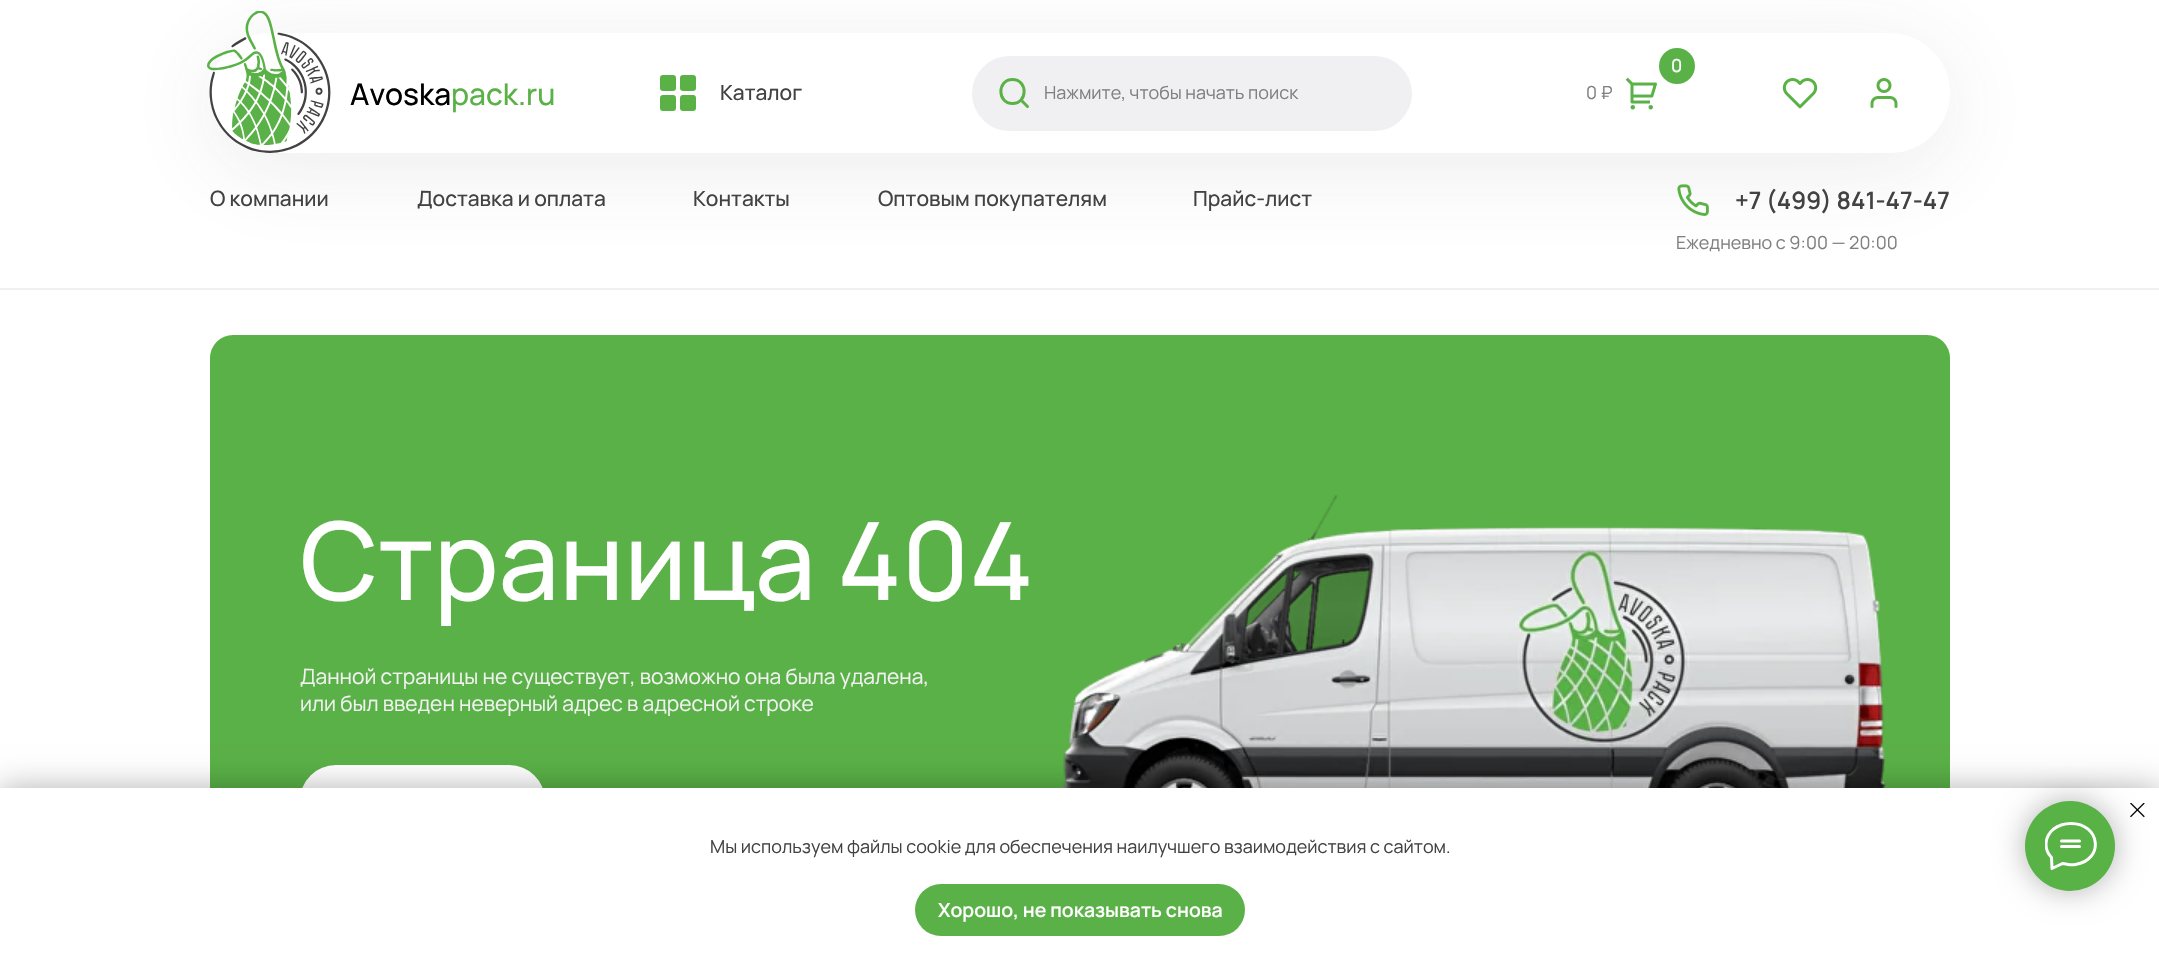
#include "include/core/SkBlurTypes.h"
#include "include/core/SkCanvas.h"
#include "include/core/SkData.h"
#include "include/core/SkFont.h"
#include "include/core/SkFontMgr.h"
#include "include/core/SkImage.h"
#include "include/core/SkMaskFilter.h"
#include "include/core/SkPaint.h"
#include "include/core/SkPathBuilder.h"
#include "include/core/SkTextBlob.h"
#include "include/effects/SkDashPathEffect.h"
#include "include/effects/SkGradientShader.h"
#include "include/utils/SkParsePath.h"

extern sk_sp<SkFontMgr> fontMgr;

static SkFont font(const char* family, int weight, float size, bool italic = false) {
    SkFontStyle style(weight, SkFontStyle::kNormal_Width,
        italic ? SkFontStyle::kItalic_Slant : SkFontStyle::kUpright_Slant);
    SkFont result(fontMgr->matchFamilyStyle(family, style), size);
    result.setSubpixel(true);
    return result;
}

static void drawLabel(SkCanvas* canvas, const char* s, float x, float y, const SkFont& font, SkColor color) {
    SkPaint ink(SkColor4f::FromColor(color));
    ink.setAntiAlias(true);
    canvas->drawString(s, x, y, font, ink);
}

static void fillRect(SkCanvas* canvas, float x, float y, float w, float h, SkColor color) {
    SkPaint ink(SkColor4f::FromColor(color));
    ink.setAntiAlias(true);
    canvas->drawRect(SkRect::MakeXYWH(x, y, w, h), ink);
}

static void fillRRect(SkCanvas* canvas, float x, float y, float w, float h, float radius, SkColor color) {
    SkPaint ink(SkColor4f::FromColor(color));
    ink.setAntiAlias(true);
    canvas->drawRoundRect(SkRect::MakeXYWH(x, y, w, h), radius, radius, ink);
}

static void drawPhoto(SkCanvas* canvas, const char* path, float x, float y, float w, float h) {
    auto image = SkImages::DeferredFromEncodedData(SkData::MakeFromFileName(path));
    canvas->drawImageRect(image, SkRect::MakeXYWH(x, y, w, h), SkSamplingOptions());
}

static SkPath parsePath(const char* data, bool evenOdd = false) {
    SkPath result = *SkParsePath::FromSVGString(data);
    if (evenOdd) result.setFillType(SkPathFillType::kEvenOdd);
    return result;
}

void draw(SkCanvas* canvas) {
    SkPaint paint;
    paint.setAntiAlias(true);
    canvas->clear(0xFFFFFFFF);
    paint.setColor(0x1A434242);
    paint.setMaskFilter(SkMaskFilter::MakeBlur(kNormal_SkBlurStyle, 45));
    canvas->drawRoundRect(SkRect::MakeXYWH(210, 48, 1740, 120), 60, 60, paint);
    paint.setMaskFilter(nullptr);
    fillRRect(canvas, 210, 33, 1740, 120, 60, 0xFFFFFFFF);
    drawPhoto(canvas, "assets/img1.png", 207, 11, 124, 142);
    fillRRect(canvas, 972, 56, 440, 75, 37.5f, 0xFFF0F0F2);
    paint.setColor(0xFF5AB147);
    canvas->drawCircle(1677, 66, 18, paint);
    SkFont font1 = font("Manrope", 500, 18);
    drawLabel(canvas, "0", 1671, 72, font1, 0xFFFFFFFF);
    SkFont font2 = font("Manrope", 500, 30);
    drawLabel(canvas, "Avoska", 350, 105, font2, 0xFF000000);
    drawLabel(canvas, "pack.ru", 451, 105, font2, 0xFF5AB147);
    fillRRect(canvas, 660, 75, 16, 16, 3, 0xFF5AB247);
    fillRRect(canvas, 660, 95, 16, 16, 3, 0xFF5AB247);
    fillRRect(canvas, 680, 75, 16, 16, 3, 0xFF5AB247);
    fillRRect(canvas, 680, 95, 16, 16, 3, 0xFF5AB247);
    SkFont font3 = font("Manrope", 500, 21);
    drawLabel(canvas, "Каталог", 720, 100, font3, 0xFF434242);
    paint.setStroke(true);
    paint.setStrokeWidth(3);
    paint.setStrokeCap(SkPaint::kRound_Cap);
    paint.setStrokeJoin(SkPaint::kRound_Join);
    paint.setColor(0xFF5AB247);
    canvas->drawPath(parsePath("M1012.5 103.5C1028 103.5 1028 79.5 1012.5 79.5C997 79.5 997 103.5 1012.5 103.5ZM1027.5 106.5L1021 100"), paint);
    SkFont font4 = font("Manrope", 400, 18);
    drawLabel(canvas, "Нажмите, чтобы начать поиск", 1044, 99, font4, 0xFF818080);
    drawLabel(canvas, "0 ₽", 1586, 99, font4, 0xFF818080);
    drawPhoto(canvas, "assets/img2.png", 1625, 77, 32, 33);
    drawPhoto(canvas, "assets/img3.png", 1782, 78, 36, 31);
    drawPhoto(canvas, "assets/img4.png", 1870, 78, 28, 30);
    drawLabel(canvas, "О компании", 210, 206, font3, 0xFF434242);
    drawLabel(canvas, "Доставка и оплата", 417, 206, font3, 0xFF434242);
    drawLabel(canvas, "Контакты", 693, 206, font3, 0xFF434242);
    drawLabel(canvas, "Оптовым покупателям", 878, 206, font3, 0xFF434242);
    drawLabel(canvas, "Прайс-лист", 1193, 206, font3, 0xFF434242);
    drawPhoto(canvas, "assets/img5.png", 1677, 184, 32, 32);
    SkFont font5 = font("Manrope", 600, 24);
    drawLabel(canvas, "+7 (499) 841-47-47", 1735, 209, font5, 0xFF434242);
    drawLabel(canvas, "Ежедневно с 9:00 — 20:00", 1676, 249, font4, 0xFF818080);
    fillRect(canvas, 0, 288, 2159, 2, 0xFFF0F0F2);
    fillRRect(canvas, 210, 335, 1740, 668, 23, 0xFF5AB147);
    SkFont font6 = font("Manrope", 500, 108);
    drawLabel(canvas, "Страница 404", 300, 600, font6, 0xFFFFFFFF);
    drawPhoto(canvas, "assets/img6.png", 1063, 495, 823, 293);
    SkFont font7 = font("Manrope", 400, 21);
    drawLabel(canvas, "Данной страницы не существует, возможно она была удалена,", 300, 684, font7, 0xFFF2F2F2);
    drawLabel(canvas, "или был введен неверный адрес в адресной строке", 300, 711, font7, 0xFFF2F2F2);
    paint.setStroke(false);
    paint.setColor(0xFFFFFFFF);
    canvas->drawRoundRect(SkRect::MakeXYWH(301, 766, 243, 70), 35, 35, paint);
    paint.setStroke(true);
    paint.setStrokeWidth(2);
    paint.setStrokeCap(SkPaint::kButt_Cap);
    paint.setStrokeJoin(SkPaint::kMiter_Join);
    canvas->drawRoundRect(SkRect::MakeXYWH(301, 766, 243, 70), 35, 35, paint);
    paint.setStroke(false);
    paint.setColor(0x4D000000);
    paint.setMaskFilter(SkMaskFilter::MakeBlur(kNormal_SkBlurStyle, 15));
    canvas->drawRect(SkRect::MakeXYWH(0, 788, 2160, 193), paint);
    paint.setMaskFilter(nullptr);
    fillRect(canvas, 0, 788, 2159, 192, 0xFFFFFFFF);
    drawPhoto(canvas, "assets/img7.png", 2130, 803, 15, 15);
    drawLabel(canvas, "Мы используем файлы cookie для обеспечения наилучшего взаимодействия с сайтом.", 710, 853, font4, 0xFF434242);
    fillRRect(canvas, 915, 884, 330, 52, 26, 0xFF5AB147);
    SkFont font8 = font("Manrope", 600, 19.5f);
    drawLabel(canvas, "Хорошо, не показывать снова", 938, 917, font8, 0xFFFFFFFF);
    paint.setMaskFilter(SkMaskFilter::MakeBlur(kNormal_SkBlurStyle, 15));
    canvas->drawRoundRect(SkRect::MakeXYWH(2025, 801, 90, 90), 45, 45, paint);
    paint.setMaskFilter(nullptr);
    paint.setColor(0xFF59B246);
    canvas->drawCircle(2070, 846, 45, paint);
    canvas->save();
    canvas->clipRect(SkRect::MakeXYWH(2045, 822, 52, 48));
    paint.setStroke(true);
    paint.setStrokeWidth(3);
    paint.setStrokeCap(SkPaint::kRound_Cap);
    paint.setStrokeJoin(SkPaint::kRound_Join);
    paint.setColor(0xFFFFFFFF);
    canvas->drawPath(parsePath("M2061.5 841H2079.5M2061.5 846.5H2079.5M2051.5 857.5C2043.5 849.5 2044.5 837 2053 829.5C2058 825.5 2064.5 823.5 2071 823.5C2100 823.5 2105 859.5 2075.5 864.5C2070.5 865.5 2067.5 864 2062.5 863.5L2052 868.5Z"), paint);
    canvas->restore();
}
